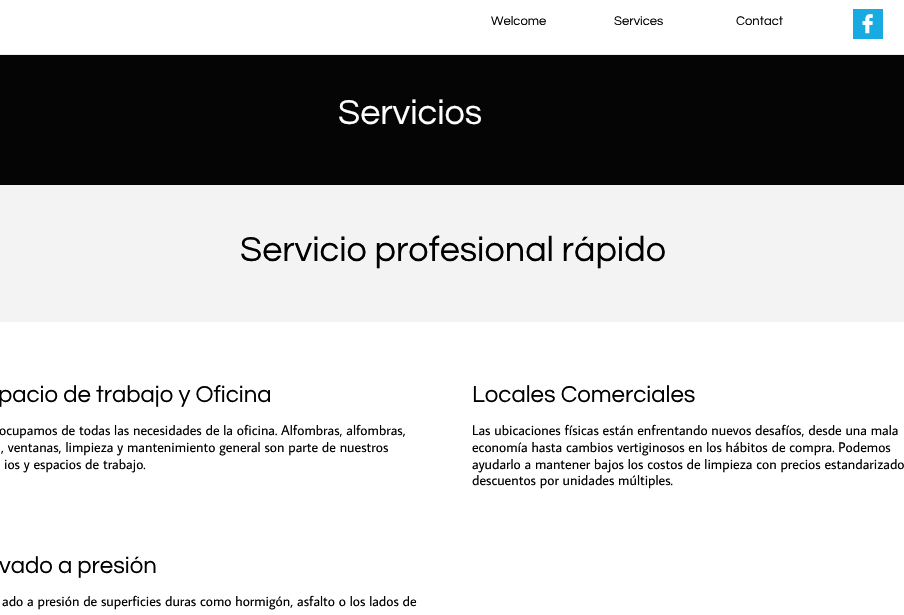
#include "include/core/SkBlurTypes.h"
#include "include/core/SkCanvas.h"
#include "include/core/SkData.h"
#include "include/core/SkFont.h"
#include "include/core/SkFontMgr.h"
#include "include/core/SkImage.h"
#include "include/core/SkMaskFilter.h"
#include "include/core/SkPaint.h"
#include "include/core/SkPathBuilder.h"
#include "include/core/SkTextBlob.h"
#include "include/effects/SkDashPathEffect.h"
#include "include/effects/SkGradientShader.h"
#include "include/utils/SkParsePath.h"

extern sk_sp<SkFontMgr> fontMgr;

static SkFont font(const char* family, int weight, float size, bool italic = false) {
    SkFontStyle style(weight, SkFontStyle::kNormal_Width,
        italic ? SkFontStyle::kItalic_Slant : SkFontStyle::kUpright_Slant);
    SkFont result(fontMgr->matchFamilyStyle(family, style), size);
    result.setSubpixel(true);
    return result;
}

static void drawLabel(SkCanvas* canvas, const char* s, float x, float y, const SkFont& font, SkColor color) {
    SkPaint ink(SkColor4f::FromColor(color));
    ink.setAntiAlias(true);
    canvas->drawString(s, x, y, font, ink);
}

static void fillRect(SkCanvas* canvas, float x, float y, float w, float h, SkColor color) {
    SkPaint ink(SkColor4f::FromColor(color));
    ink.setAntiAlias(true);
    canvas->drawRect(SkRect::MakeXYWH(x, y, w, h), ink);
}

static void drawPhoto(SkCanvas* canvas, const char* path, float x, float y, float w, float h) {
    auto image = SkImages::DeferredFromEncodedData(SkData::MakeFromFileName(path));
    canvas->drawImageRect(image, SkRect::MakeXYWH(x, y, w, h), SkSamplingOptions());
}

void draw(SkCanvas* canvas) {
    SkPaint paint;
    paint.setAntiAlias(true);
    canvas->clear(0xFFFFFFFF);
    fillRect(canvas, 0, 54, 904, 1, 0xFFEBEBEB);
    SkFont font1 = font("Questrial", 400, 13);
    drawLabel(canvas, "Welcome", 491, 25, font1, 0xFF000000);
    drawLabel(canvas, "Services", 614, 25, font1, 0xFF000000);
    drawLabel(canvas, "Contact", 736, 25, font1, 0xFF000000);
    fillRect(canvas, 853, 9, 30, 30, 0xFF18ABE2);
    drawPhoto(canvas, "assets/img1.png", 862, 14, 11, 20);
    fillRect(canvas, 0, 55, 904, 130, 0xFF050505);
    SkFont font2 = font("Questrial", 400, 36);
    drawLabel(canvas, "Servicios", 338, 124, font2, 0xFFFFFFFF);
    fillRect(canvas, 0, 185, 904, 137, 0xFFF3F3F3);
    drawLabel(canvas, "Servicio profesional rápido", 240, 261, font2, 0xFF000000);
    SkFont font3 = font("Questrial", 400, 24);
    drawLabel(canvas, "pacio de trabajo y Oficina", -2, 402, font3, 0xFF000000);
    drawLabel(canvas, "Locales Comerciales", 472, 402, font3, 0xFF000000);
    SkFont font4 = font("Average Sans", 400, 14);
    drawLabel(canvas, "ocupamos de todas las necesidades de la oficina. Alfombras, alfombras,", -1, 435, font4, 0xFF000000);
    drawLabel(canvas, ", ventanas, limpieza y mantenimiento general son parte de nuestros", 1, 452, font4, 0xFF000000);
    drawLabel(canvas, "ios y espacios de trabajo.", 4, 469, font4, 0xFF000000);
    drawLabel(canvas, "Las ubicaciones físicas están enfrentando nuevos desafíos, desde una mala", 472, 435, font4, 0xFF000000);
    drawLabel(canvas, "economía hasta cambios vertiginosos en los hábitos de compra. Podemos", 472, 452, font4, 0xFF000000);
    drawLabel(canvas, "ayudarlo a mantener bajos los costos de limpieza con precios estandarizado", 472, 469, font4, 0xFF000000);
    drawLabel(canvas, "descuentos por unidades múltiples.", 472, 485, font4, 0xFF000000);
    drawLabel(canvas, "vado a presión", -1, 573, font3, 0xFF000000);
    drawLabel(canvas, "ado a presión de superficies duras como hormigón, asfalto o los lados de", 2, 606, font4, 0xFF000000);
}
